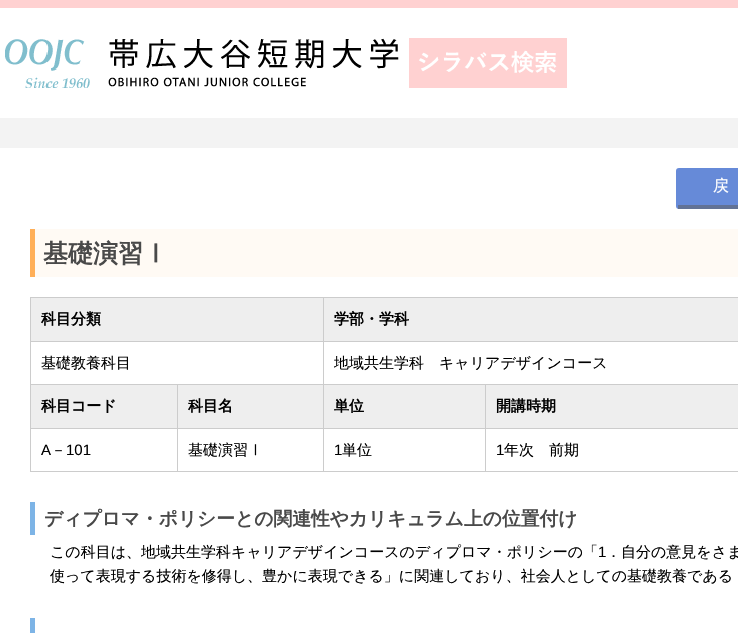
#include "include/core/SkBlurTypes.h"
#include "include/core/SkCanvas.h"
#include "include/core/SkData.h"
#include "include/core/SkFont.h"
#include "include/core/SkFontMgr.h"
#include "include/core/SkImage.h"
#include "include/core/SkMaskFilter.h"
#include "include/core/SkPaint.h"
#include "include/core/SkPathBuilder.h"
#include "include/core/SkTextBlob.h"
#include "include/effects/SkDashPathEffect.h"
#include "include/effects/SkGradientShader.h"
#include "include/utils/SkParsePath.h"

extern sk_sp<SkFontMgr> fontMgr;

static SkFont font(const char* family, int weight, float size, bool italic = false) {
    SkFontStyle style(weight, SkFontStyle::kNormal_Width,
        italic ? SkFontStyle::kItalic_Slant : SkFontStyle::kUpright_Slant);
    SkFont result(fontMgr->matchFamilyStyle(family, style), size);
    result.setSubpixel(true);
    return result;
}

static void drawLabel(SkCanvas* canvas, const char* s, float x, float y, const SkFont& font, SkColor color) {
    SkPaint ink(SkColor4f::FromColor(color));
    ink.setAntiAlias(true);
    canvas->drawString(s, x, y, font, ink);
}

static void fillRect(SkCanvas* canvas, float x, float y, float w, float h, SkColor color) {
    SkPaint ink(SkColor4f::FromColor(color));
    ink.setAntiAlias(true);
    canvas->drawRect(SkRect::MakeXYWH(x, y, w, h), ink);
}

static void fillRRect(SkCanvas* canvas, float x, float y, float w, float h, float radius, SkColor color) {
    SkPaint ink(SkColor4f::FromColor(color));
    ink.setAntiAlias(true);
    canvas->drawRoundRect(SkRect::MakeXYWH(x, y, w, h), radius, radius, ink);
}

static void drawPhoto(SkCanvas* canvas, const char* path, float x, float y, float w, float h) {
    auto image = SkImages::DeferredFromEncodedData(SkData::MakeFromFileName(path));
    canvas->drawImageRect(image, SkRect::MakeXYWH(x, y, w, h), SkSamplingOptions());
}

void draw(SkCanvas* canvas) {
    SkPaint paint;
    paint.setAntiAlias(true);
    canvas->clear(0xFFF3F3F3);
    fillRect(canvas, 0, 0, 738, 8, 0xFFFFD1D1);
    fillRect(canvas, 0, 8, 738, 110, 0xFFFFFFFF);
    drawPhoto(canvas, "assets/img1.png", 5, 38, 562, 50);
    fillRect(canvas, 0, 148, 738, 485, 0xFFFFFFFF);
    fillRRect(canvas, 676, 168, 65, 41, 3, 0xFF668AD8);
    fillRect(canvas, 678, 205, 60, 4, 0xFF627295);
    SkFont font1 = font("WenQuanYi Zen Hei", 500, 16);
    drawLabel(canvas, "戻", 713, 191, font1, 0xFFFFFFFF);
    fillRect(canvas, 35, 229, 703, 48, 0xFFFFFAF4);
    fillRect(canvas, 30, 229, 5, 48, 0xFFFFAF58);
    SkFont font2 = font("WenQuanYi Zen Hei", 700, 25);
    drawLabel(canvas, "基礎演習Ⅰ", 43, 262, font2, 0xFF494949);
    fillRect(canvas, 31, 298, 292, 43, 0xFFEEEEEE);
    fillRect(canvas, 323, 297, 415, 1, 0xFFCCCCCC);
    fillRect(canvas, 323, 341, 415, 1, 0xFFCCCCCC);
    fillRect(canvas, 485, 384, 253, 1, 0xFFCCCCCC);
    fillRect(canvas, 485, 428, 253, 1, 0xFFCCCCCC);
    fillRect(canvas, 485, 471, 253, 1, 0xFFCCCCCC);
    fillRect(canvas, 485, 428, 1, 44, 0xFFCCCCCC);
    fillRect(canvas, 323, 428, 163, 1, 0xFFCCCCCC);
    fillRect(canvas, 485, 384, 1, 45, 0xFFCCCCCC);
    fillRect(canvas, 323, 384, 163, 1, 0xFFCCCCCC);
    fillRect(canvas, 323, 471, 163, 1, 0xFFCCCCCC);
    fillRect(canvas, 323, 428, 1, 44, 0xFFCCCCCC);
    fillRect(canvas, 177, 428, 147, 1, 0xFFCCCCCC);
    fillRect(canvas, 323, 384, 1, 45, 0xFFCCCCCC);
    fillRect(canvas, 177, 384, 147, 1, 0xFFCCCCCC);
    fillRect(canvas, 323, 341, 1, 44, 0xFFCCCCCC);
    fillRect(canvas, 30, 341, 294, 1, 0xFFCCCCCC);
    fillRect(canvas, 323, 297, 1, 45, 0xFFCCCCCC);
    fillRect(canvas, 30, 297, 294, 1, 0xFFCCCCCC);
    fillRect(canvas, 177, 471, 147, 1, 0xFFCCCCCC);
    fillRect(canvas, 177, 428, 1, 44, 0xFFCCCCCC);
    fillRect(canvas, 30, 428, 148, 1, 0xFFCCCCCC);
    fillRect(canvas, 177, 384, 1, 45, 0xFFCCCCCC);
    fillRect(canvas, 30, 384, 148, 1, 0xFFCCCCCC);
    fillRect(canvas, 30, 471, 148, 1, 0xFFCCCCCC);
    fillRect(canvas, 30, 428, 1, 44, 0xFFCCCCCC);
    fillRect(canvas, 30, 384, 1, 45, 0xFFCCCCCC);
    fillRect(canvas, 30, 341, 1, 44, 0xFFCCCCCC);
    fillRect(canvas, 30, 297, 1, 45, 0xFFCCCCCC);
    SkFont font3 = font("WenQuanYi Zen Hei", 700, 15);
    drawLabel(canvas, "科目分類", 41, 324, font3, 0xFF000000);
    fillRect(canvas, 324, 298, 414, 43, 0xFFEEEEEE);
    drawLabel(canvas, "学部・学科", 334, 324, font3, 0xFF000000);
    SkFont font4 = font("WenQuanYi Zen Hei", 500, 15);
    drawLabel(canvas, "基礎教養科目", 41, 368, font4, 0xFF000000);
    drawLabel(canvas, "地域共生学科　キャリアデザインコース", 334, 368, font4, 0xFF000000);
    fillRect(canvas, 31, 385, 146, 43, 0xFFEEEEEE);
    drawLabel(canvas, "科目コード", 41, 411, font3, 0xFF000000);
    fillRect(canvas, 178, 385, 145, 43, 0xFFEEEEEE);
    drawLabel(canvas, "科目名", 188, 411, font3, 0xFF000000);
    fillRect(canvas, 324, 385, 161, 43, 0xFFEEEEEE);
    drawLabel(canvas, "単位", 334, 411, font3, 0xFF000000);
    fillRect(canvas, 486, 385, 252, 43, 0xFFEEEEEE);
    drawLabel(canvas, "開講時期", 496, 411, font3, 0xFF000000);
    SkFont font5 = font("Liberation Sans", 400, 15);
    drawLabel(canvas, "A", 41, 455, font5, 0xFF000000);
    drawLabel(canvas, "－", 51, 455, font4, 0xFF000000);
    drawLabel(canvas, "101", 66, 455, font5, 0xFF000000);
    drawLabel(canvas, "基礎演習Ⅰ", 188, 455, font4, 0xFF000000);
    drawLabel(canvas, "1", 334, 455, font5, 0xFF000000);
    drawLabel(canvas, "単位", 342, 455, font4, 0xFF000000);
    drawLabel(canvas, "1", 496, 455, font5, 0xFF000000);
    drawLabel(canvas, "年次　前期", 504, 455, font4, 0xFF000000);
    fillRect(canvas, 30, 502, 5, 33, 0xFF7DB4E6);
    SkFont font6 = font("WenQuanYi Zen Hei", 700, 18.75f);
    drawLabel(canvas, "ディプロマ・ポリシーとの関連性やカリキュラム上の位置付け", 44, 525, font6, 0xFF494949);
    drawLabel(canvas, "この科目は、地域共生学科キャリアデザインコースのディプロマ・ポリシーの「", 50, 557, font4, 0xFF000000);
    drawLabel(canvas, "1", 598, 557, font5, 0xFF000000);
    drawLabel(canvas, "．自分の意見をさま", 606, 557, font4, 0xFF000000);
    drawLabel(canvas, "使って表現する技術を修得し、豊かに表現できる」に関連しており、社会人としての基礎教養である", 50, 581, font4, 0xFF000000);
    fillRect(canvas, 30, 618, 5, 15, 0xFF7DB4E6);
}
